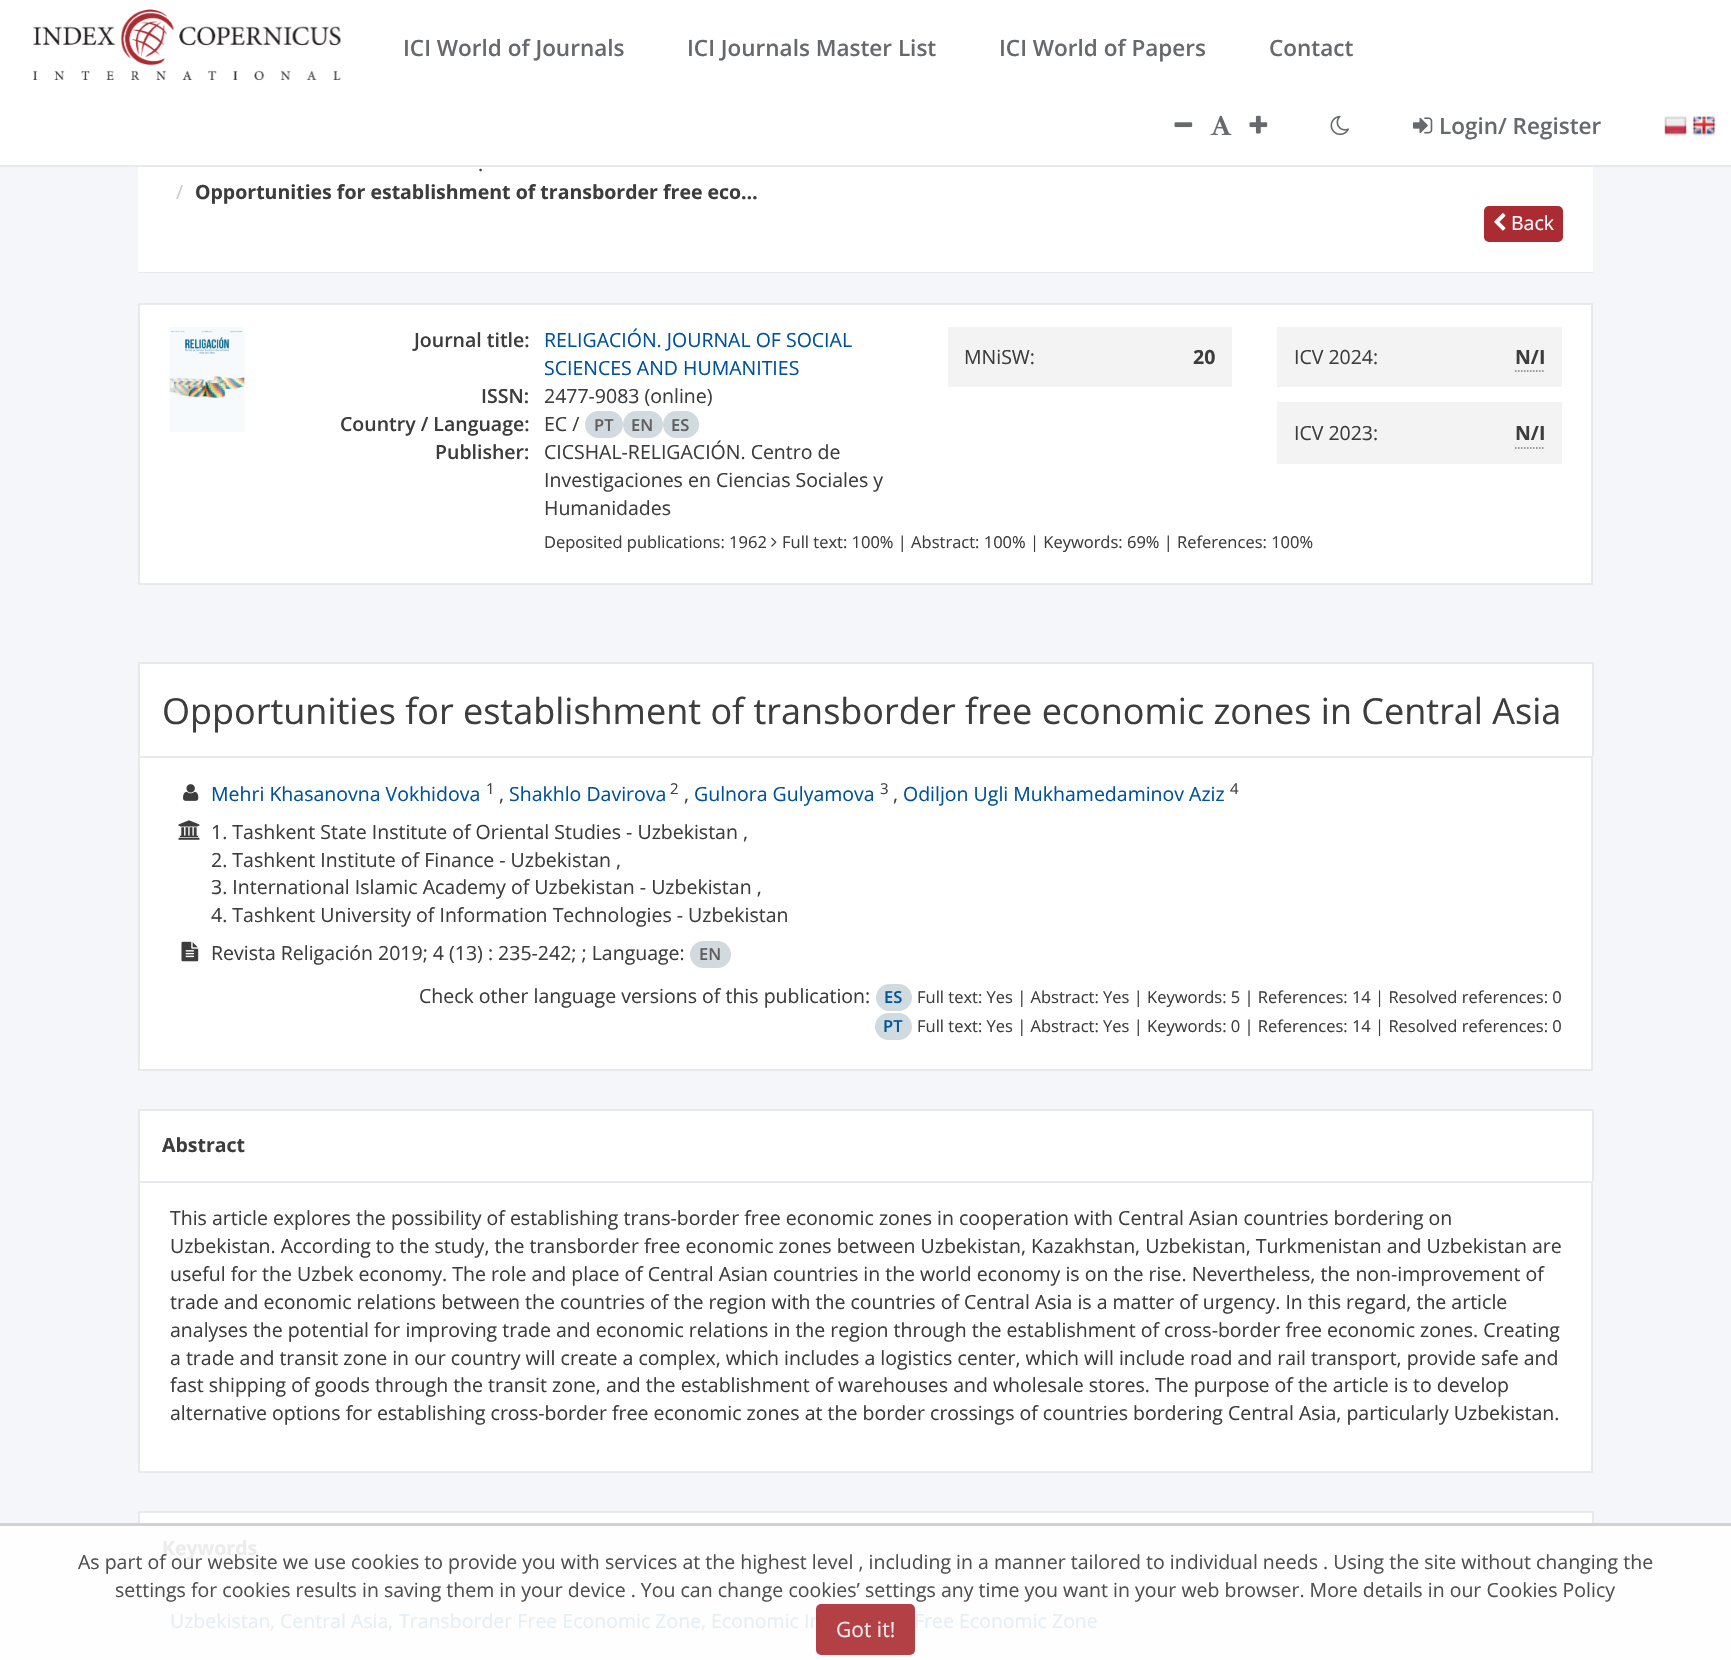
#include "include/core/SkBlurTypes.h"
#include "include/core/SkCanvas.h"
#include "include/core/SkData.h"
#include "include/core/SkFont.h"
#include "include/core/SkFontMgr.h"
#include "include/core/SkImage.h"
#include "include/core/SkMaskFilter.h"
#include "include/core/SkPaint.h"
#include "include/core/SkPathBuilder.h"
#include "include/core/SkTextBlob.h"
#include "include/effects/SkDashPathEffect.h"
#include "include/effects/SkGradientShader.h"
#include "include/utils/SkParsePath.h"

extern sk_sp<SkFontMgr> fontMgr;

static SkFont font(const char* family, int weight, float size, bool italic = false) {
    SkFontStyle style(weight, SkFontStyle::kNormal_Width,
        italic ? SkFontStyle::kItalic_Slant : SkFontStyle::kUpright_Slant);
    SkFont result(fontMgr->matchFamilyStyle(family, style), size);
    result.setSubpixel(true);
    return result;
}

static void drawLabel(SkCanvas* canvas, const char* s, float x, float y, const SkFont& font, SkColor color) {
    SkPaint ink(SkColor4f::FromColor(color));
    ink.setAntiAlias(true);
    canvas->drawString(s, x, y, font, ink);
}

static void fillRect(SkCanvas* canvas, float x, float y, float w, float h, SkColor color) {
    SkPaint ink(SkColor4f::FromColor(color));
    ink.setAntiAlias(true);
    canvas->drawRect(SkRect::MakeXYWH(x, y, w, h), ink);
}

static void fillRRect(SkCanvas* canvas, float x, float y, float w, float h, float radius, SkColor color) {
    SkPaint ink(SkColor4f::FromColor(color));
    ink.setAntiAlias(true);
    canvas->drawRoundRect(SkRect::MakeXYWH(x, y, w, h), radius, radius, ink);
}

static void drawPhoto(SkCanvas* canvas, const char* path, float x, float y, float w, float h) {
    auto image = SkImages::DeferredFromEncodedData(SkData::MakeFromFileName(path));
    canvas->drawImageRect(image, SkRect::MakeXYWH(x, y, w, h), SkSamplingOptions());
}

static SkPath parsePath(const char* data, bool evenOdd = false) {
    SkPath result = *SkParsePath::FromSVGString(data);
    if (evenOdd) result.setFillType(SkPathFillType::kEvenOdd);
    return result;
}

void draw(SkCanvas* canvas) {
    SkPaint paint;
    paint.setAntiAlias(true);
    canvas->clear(0xFFF4F6FA);
    fillRect(canvas, 0, 0, 1731, 165, 0xFFFFFFFF);
    fillRect(canvas, 0, 165, 1731, 2, 0xFFE7EAEC);
    drawPhoto(canvas, "assets/img1.png", 33, 9, 308, 72);
    SkFont font1 = font("Open Sans", 600, 22.5f);
    drawLabel(canvas, "ICI World of Journals", 403, 56, font1, 0xFF676A6C);
    drawLabel(canvas, "ICI Journals Master List", 687, 56, font1, 0xFF676A6C);
    drawLabel(canvas, "ICI World of Papers", 999, 56, font1, 0xFF676A6C);
    drawLabel(canvas, "Contact", 1269, 56, font1, 0xFF676A6C);
    drawPhoto(canvas, "assets/img2.png", 1174, 122, 19, 6);
    drawPhoto(canvas, "assets/img3.png", 1210, 115, 22, 21);
    drawPhoto(canvas, "assets/img4.png", 1249, 115, 19, 19);
    drawPhoto(canvas, "assets/img5.png", 1330, 115, 19, 21);
    drawPhoto(canvas, "assets/img6.png", 1413, 117, 20, 17);
    drawLabel(canvas, "Login/ Register", 1439, 134, font1, 0xFF676A6C);
    drawPhoto(canvas, "assets/img7.png", 1664, 116, 23, 20);
    drawPhoto(canvas, "assets/img8.png", 1692, 116, 24, 20);
    fillRect(canvas, 0, 1526, 1731, 134, 0xFFFEFEFF);
    fillRect(canvas, 138, 167, 1455, 105, 0xFFFFFFFF);
    fillRect(canvas, 138, 272, 1455, 1, 0xFFE7EAEC);
    SkFont font2 = font("Open Sans", 400, 19.5f);
    drawLabel(canvas, ".", 478, 171, font2, 0xFF3D3D3D);
    drawLabel(canvas, "/", 176, 199, font2, 0xFFCCCCCC);
    SkFont font3 = font("Open Sans", 700, 19.5f);
    drawLabel(canvas, "Opportunities for establishment of transborder free eco…", 195, 199, font3, 0xFF3D3D3D);
    paint.setColor(0xFFAA2B31);
    canvas->drawRoundRect(SkRect::MakeXYWH(1485, 207, 77, 34), 4, 4, paint);
    paint.setStroke(true);
    paint.setStrokeWidth(2);
    canvas->drawRoundRect(SkRect::MakeXYWH(1485, 207, 77, 34), 4, 4, paint);
    drawPhoto(canvas, "assets/img9.png", 1494, 213, 12, 18);
    drawLabel(canvas, "Back", 1511, 230, font2, 0xFFFFFFFF);
    paint.setStroke(false);
    paint.setColor(0xFFFFFFFF);
    canvas->drawRect(SkRect::MakeXYWH(139, 304, 1453, 280), paint);
    paint.setStroke(true);
    paint.setColor(0xFFE7EAEC);
    canvas->drawRect(SkRect::MakeXYWH(139, 304, 1453, 280), paint);
    drawPhoto(canvas, "assets/img10.png", 169, 327, 76, 105);
    SkFont font4 = font("Open Sans", 600, 19.5f);
    drawLabel(canvas, "Journal title:", 414, 347, font4, 0xFF3D3D3D);
    drawLabel(canvas, "RELIGACIÓN. JOURNAL OF SOCIAL", 544, 347, font2, 0xFF00539B);
    drawLabel(canvas, "SCIENCES AND HUMANITIES", 544, 375, font2, 0xFF00539B);
    drawLabel(canvas, "ISSN:", 481, 403, font4, 0xFF3D3D3D);
    drawLabel(canvas, "2477-9083 (online)", 544, 403, font2, 0xFF3D3D3D);
    drawLabel(canvas, "Country / Language:", 340, 431, font4, 0xFF3D3D3D);
    drawLabel(canvas, "EC /", 544, 431, font2, 0xFF3D3D3D);
    fillRRect(canvas, 585, 411, 38, 27, 13.5f, 0xFFD1DADE);
    SkFont font5 = font("Open Sans", 600, 16.5f);
    drawLabel(canvas, "PT", 594, 431, font5, 0xFF5E5E5E);
    fillRRect(canvas, 623, 411, 40, 27, 13.5f, 0xFFD1DADE);
    drawLabel(canvas, "EN", 631, 431, font5, 0xFF5E5E5E);
    fillRRect(canvas, 663, 411, 36, 27, 13.5f, 0xFFD1DADE);
    drawLabel(canvas, "ES", 671, 431, font5, 0xFF5E5E5E);
    drawLabel(canvas, "Publisher:", 435, 459, font4, 0xFF3D3D3D);
    drawLabel(canvas, "CICSHAL-RELIGACIÓN. Centro de", 544, 459, font2, 0xFF3D3D3D);
    drawLabel(canvas, "Investigaciones en Ciencias Sociales y", 544, 487, font2, 0xFF3D3D3D);
    drawLabel(canvas, "Humanidades", 544, 515, font2, 0xFF3D3D3D);
    fillRect(canvas, 948, 327, 284, 60, 0xFFF3F3F4);
    drawLabel(canvas, "MNiSW:", 964, 364, font2, 0xFF3D3D3D);
    drawLabel(canvas, "20", 1193, 364, font3, 0xFF3D3D3D);
    fillRect(canvas, 1277, 327, 285, 60, 0xFFF3F3F4);
    drawLabel(canvas, "ICV 2024:", 1294, 364, font2, 0xFF3D3D3D);
    paint.setStrokeWidth(1.5f);
    paint.setColor(0xFF777777);
    paint.setPathEffect(SkDashPathEffect::Make({{1.5f, 1.5f}}, 0));
    canvas->drawPath(parsePath("M1515 371H1545"), paint);
    paint.setPathEffect(nullptr);
    drawLabel(canvas, "N/I", 1515, 364, font3, 0xFF3D3D3D);
    fillRect(canvas, 1277, 402, 285, 62, 0xFFF3F3F4);
    drawLabel(canvas, "ICV 2023:", 1294, 440, font2, 0xFF3D3D3D);
    paint.setPathEffect(SkDashPathEffect::Make({{1.5f, 1.5f}}, 0));
    canvas->drawPath(parsePath("M1515 448H1545"), paint);
    paint.setPathEffect(nullptr);
    drawLabel(canvas, "N/I", 1515, 440, font3, 0xFF3D3D3D);
    SkFont font6 = font("Open Sans", 400, 16.5f);
    drawLabel(canvas, "Deposited publications: 1962", 544, 548, font6, 0xFF3D3D3D);
    drawPhoto(canvas, "assets/img11.png", 771, 537, 6, 10);
    drawLabel(canvas, "Full text: 100% | Abstract: 100% | Keywords: 69% | References: 100%", 782, 548, font6, 0xFF3D3D3D);
    fillRect(canvas, 140, 664, 1452, 92, 0xFFFFFFFF);
    fillRect(canvas, 138, 662, 1455, 2, 0xFFE7EAEC);
    fillRect(canvas, 1592, 662, 2, 94, 0xFFE7EAEC);
    fillRect(canvas, 138, 662, 2, 94, 0xFFE7EAEC);
    SkFont font7 = font("Open Sans", 400, 36);
    drawLabel(canvas, "Opportunities for establishment of transborder free economic zones in Central Asia", 162, 724, font7, 0xFF3D3D3D);
    paint.setStroke(false);
    paint.setColor(0xFFFFFFFF);
    canvas->drawRect(SkRect::MakeXYWH(139, 757, 1453, 313), paint);
    paint.setStroke(true);
    paint.setStrokeWidth(2);
    paint.setColor(0xFFE7EAEC);
    canvas->drawRect(SkRect::MakeXYWH(139, 757, 1453, 313), paint);
    drawPhoto(canvas, "assets/img12.png", 183, 784, 16, 17);
    drawLabel(canvas, "Mehri Khasanovna Vokhidova", 211, 801, font2, 0xFF00539B);
    SkFont font8 = font("Open Sans", 400, 15);
    drawLabel(canvas, "1", 486, 794, font8, 0xFF3D3D3D);
    drawLabel(canvas, ",", 499, 801, font2, 0xFF3D3D3D);
    drawLabel(canvas, "Shakhlo Davirova", 509, 801, font2, 0xFF00539B);
    drawLabel(canvas, "2", 670, 794, font8, 0xFF3D3D3D);
    drawLabel(canvas, ",", 684, 801, font2, 0xFF3D3D3D);
    drawLabel(canvas, "Gulnora Gulyamova", 694, 801, font2, 0xFF00539B);
    drawLabel(canvas, "3", 880, 794, font8, 0xFF3D3D3D);
    drawLabel(canvas, ",", 893, 801, font2, 0xFF3D3D3D);
    drawLabel(canvas, "Odiljon Ugli Mukhamedaminov Aziz", 903, 801, font2, 0xFF00539B);
    drawLabel(canvas, "4", 1230, 794, font8, 0xFF3D3D3D);
    drawPhoto(canvas, "assets/img13.png", 178, 820, 22, 20);
    drawLabel(canvas, "1. Tashkent State Institute of Oriental Studies - Uzbekistan ,", 211, 839, font2, 0xFF3D3D3D);
    drawLabel(canvas, "2. Tashkent Institute of Finance - Uzbekistan ,", 211, 867, font2, 0xFF3D3D3D);
    drawLabel(canvas, "3. International Islamic Academy of Uzbekistan - Uzbekistan ,", 211, 894, font2, 0xFF3D3D3D);
    drawLabel(canvas, "4. Tashkent University of Information Technologies - Uzbekistan", 211, 922, font2, 0xFF3D3D3D);
    drawPhoto(canvas, "assets/img14.png", 181, 941, 18, 21);
    drawLabel(canvas, "Revista Religación 2019; 4 (13) : 235-242; ; Language:", 211, 960, font2, 0xFF3D3D3D);
    fillRRect(canvas, 690, 941, 41, 27, 13.5f, 0xFFD1DADE);
    drawLabel(canvas, "EN", 699, 960, font5, 0xFF5E5E5E);
    drawLabel(canvas, "Check other language versions of this publication:", 419, 1003, font2, 0xFF3D3D3D);
    fillRRect(canvas, 876, 984, 36, 27, 13.5f, 0xFFD1DADE);
    drawLabel(canvas, "ES", 884, 1003, font5, 0xFF00539B);
    drawLabel(canvas, "Full text: Yes | Abstract: Yes | Keywords: 5 | References: 14 | Resolved references: 0", 917, 1003, font6, 0xFF3D3D3D);
    fillRRect(canvas, 875, 1013, 37, 27, 13.5f, 0xFFD1DADE);
    drawLabel(canvas, "PT", 883, 1032, font5, 0xFF00539B);
    drawLabel(canvas, "Full text: Yes | Abstract: Yes | Keywords: 0 | References: 14 | Resolved references: 0", 917, 1032, font6, 0xFF3D3D3D);
    fillRect(canvas, 140, 1111, 1452, 70, 0xFFFFFFFF);
    fillRect(canvas, 138, 1109, 1455, 2, 0xFFE7EAEC);
    fillRect(canvas, 1592, 1109, 2, 72, 0xFFE7EAEC);
    fillRect(canvas, 138, 1109, 2, 72, 0xFFE7EAEC);
    drawLabel(canvas, "Abstract", 162, 1152, font3, 0xFF3D3D3D);
    paint.setStroke(false);
    paint.setColor(0xFFFFFFFF);
    canvas->drawRect(SkRect::MakeXYWH(139, 1182, 1453, 290), paint);
    paint.setStroke(true);
    paint.setColor(0xFFE7EAEC);
    canvas->drawRect(SkRect::MakeXYWH(139, 1182, 1453, 290), paint);
    drawLabel(canvas, "This article explores the possibility of establishing trans-border free economic zones in cooperation with Central Asian countries bordering on", 170, 1225, font2, 0xFF3D3D3D);
    drawLabel(canvas, "Uzbekistan. According to the study, the transborder free economic zones between Uzbekistan, Kazakhstan, Uzbekistan, Turkmenistan and Uzbekistan are", 170, 1253, font2, 0xFF3D3D3D);
    drawLabel(canvas, "useful for the Uzbek economy. The role and place of Central Asian countries in the world economy is on the rise. Nevertheless, the non-improvement of", 170, 1281, font2, 0xFF3D3D3D);
    drawLabel(canvas, "trade and economic relations between the countries of the region with the countries of Central Asia is a matter of urgency. In this regard, the article", 170, 1309, font2, 0xFF3D3D3D);
    drawLabel(canvas, "analyses the potential for improving trade and economic relations in the region through the establishment of cross-border free economic zones. Creating", 170, 1337, font2, 0xFF3D3D3D);
    drawLabel(canvas, "a trade and transit zone in our country will create a complex, which includes a logistics center, which will include road and rail transport, provide safe and", 170, 1365, font2, 0xFF3D3D3D);
    drawLabel(canvas, "fast shipping of goods through the transit zone, and the establishment of warehouses and wholesale stores. The purpose of the article is to develop", 170, 1392, font2, 0xFF3D3D3D);
    drawLabel(canvas, "alternative options for establishing cross-border free economic zones at the border crossings of countries bordering Central Asia, particularly Uzbekistan.", 170, 1420, font2, 0xFF3D3D3D);
    fillRect(canvas, 140, 1513, 1452, 10, 0xFFFFFFFF);
    fillRect(canvas, 138, 1511, 1455, 2, 0xFFE7EAEC);
    fillRect(canvas, 1592, 1511, 2, 12, 0xFFE7EAEC);
    fillRect(canvas, 1592, 1523, 2, 3, 0xFFFDFDFD);
    fillRect(canvas, 138, 1511, 2, 12, 0xFFE7EAEC);
    fillRect(canvas, 138, 1523, 2, 3, 0xFFFDFDFD);
    drawLabel(canvas, "Keywords", 162, 1555, font3, 0xFFECECEC);
    drawLabel(canvas, "Uzbekistan", 170, 1628, font2, 0xFFE6EEF5);
    drawLabel(canvas, ",", 270, 1628, font2, 0xFFECECEC);
    drawLabel(canvas, "Central Asia", 280, 1628, font2, 0xFFE6EEF5);
    drawLabel(canvas, ",", 388, 1628, font2, 0xFFECECEC);
    drawLabel(canvas, "Transborder Free Economic Zone", 399, 1628, font2, 0xFFE6EEF5);
    drawLabel(canvas, ",", 701, 1628, font2, 0xFFECECEC);
    drawLabel(canvas, "Economic In", 711, 1628, font2, 0xFFE6EEF5);
    drawLabel(canvas, "Free Economic Zone", 914, 1628, font2, 0xFFE6EEF5);
    fillRect(canvas, 0, 1523, 1731, 3, 0xFFD1D1D1);
    drawLabel(canvas, "As part of our website we use cookies to provide you with services at the highest level , including in a manner tailored to individual needs . Using the site without changing the", 78, 1569, font2, 0xFF505050);
    drawLabel(canvas, "settings for cookies results in saving them in your device . You can change cookies’ settings any time you want in your web browser. More details in our Cookies Policy", 115, 1597, font2, 0xFF505050);
    fillRRect(canvas, 816, 1604, 99, 51, 5, 0xE6AA2B31);
    SkFont font9 = font("Open Sans", 400, 21);
    drawLabel(canvas, "Got it!", 836, 1637, font9, 0xFFF7ECEC);
}
